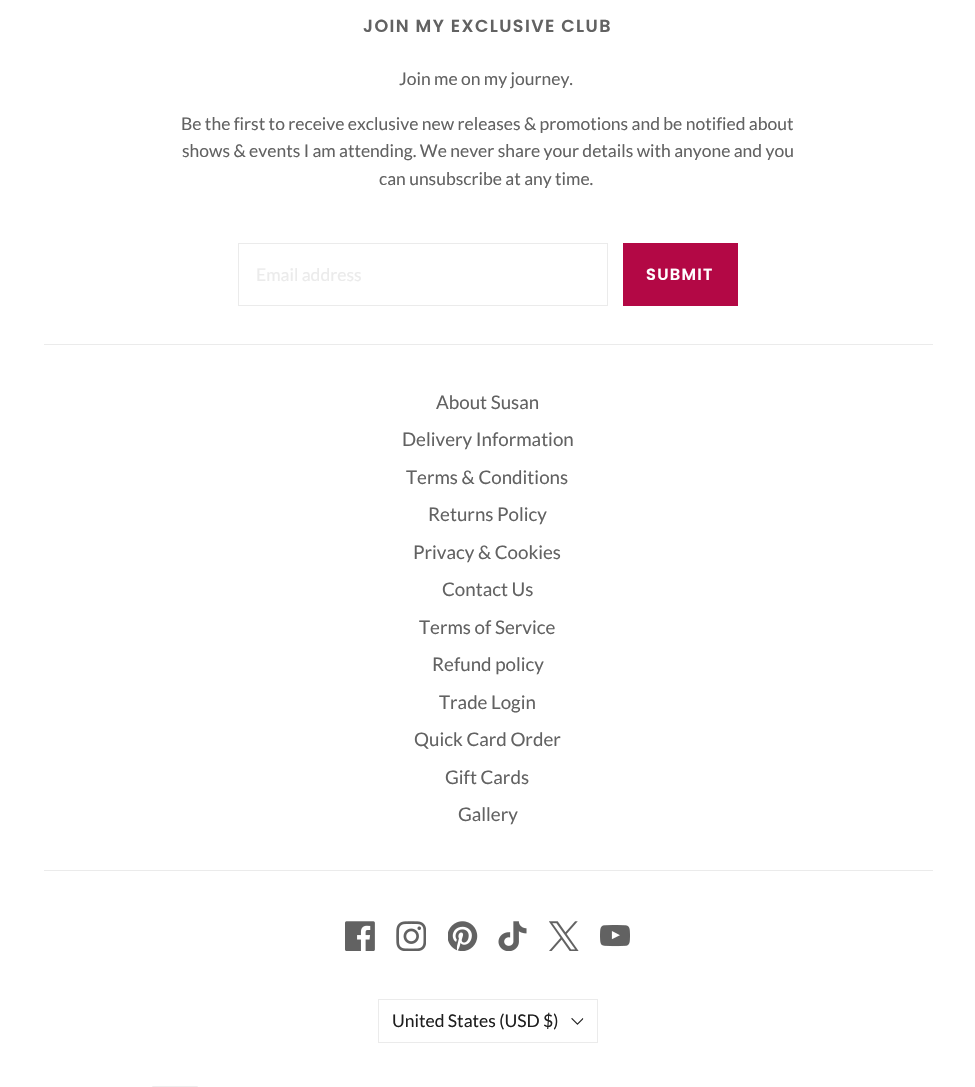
#include "include/core/SkBlurTypes.h"
#include "include/core/SkCanvas.h"
#include "include/core/SkData.h"
#include "include/core/SkFont.h"
#include "include/core/SkFontMgr.h"
#include "include/core/SkImage.h"
#include "include/core/SkMaskFilter.h"
#include "include/core/SkPaint.h"
#include "include/core/SkPathBuilder.h"
#include "include/core/SkTextBlob.h"
#include "include/effects/SkDashPathEffect.h"
#include "include/effects/SkGradientShader.h"
#include "include/utils/SkParsePath.h"

extern sk_sp<SkFontMgr> fontMgr;

static SkFont font(const char* family, int weight, float size, bool italic = false) {
    SkFontStyle style(weight, SkFontStyle::kNormal_Width,
        italic ? SkFontStyle::kItalic_Slant : SkFontStyle::kUpright_Slant);
    SkFont result(fontMgr->matchFamilyStyle(family, style), size);
    result.setSubpixel(true);
    return result;
}

static void drawLabel(SkCanvas* canvas, const char* s, float x, float y, const SkFont& font, SkColor color) {
    SkPaint ink(SkColor4f::FromColor(color));
    ink.setAntiAlias(true);
    canvas->drawString(s, x, y, font, ink);
}

static void drawTracked(SkCanvas* canvas, const char* s, float x, float y, const SkFont& font, const SkPaint& ink, float letter, float word) {
    std::vector<SkGlyphID> glyphs(font.countText(s, strlen(s), SkTextEncoding::kUTF8));
    std::vector<float> xs(glyphs.size());
    font.textToGlyphs(s, strlen(s), SkTextEncoding::kUTF8, glyphs);
    font.getXPos(glyphs, xs, x);
    float extra = 0;
    for (size_t i = 0; i < glyphs.size(); i++) {
        xs[i] += extra;
        extra += letter + word * (glyphs[i] == font.unicharToGlyph(' '));
    }
    canvas->drawTextBlob(SkTextBlob::MakeFromPosHGlyphs(glyphs, xs, y, font), 0, 0, ink);
}

static void fillRect(SkCanvas* canvas, float x, float y, float w, float h, SkColor color) {
    SkPaint ink(SkColor4f::FromColor(color));
    ink.setAntiAlias(true);
    canvas->drawRect(SkRect::MakeXYWH(x, y, w, h), ink);
}

static void drawPhoto(SkCanvas* canvas, const char* path, float x, float y, float w, float h) {
    auto image = SkImages::DeferredFromEncodedData(SkData::MakeFromFileName(path));
    canvas->drawImageRect(image, SkRect::MakeXYWH(x, y, w, h), SkSamplingOptions());
}

void draw(SkCanvas* canvas) {
    SkPaint paint;
    paint.setAntiAlias(true);
    canvas->clear(0xFFFFFFFF);
    fillRect(canvas, 44, 870, 889, 1, 0xFFEBEBEB);
    SkFont font1 = font("Poppins", 600, 17.5f);
    paint.setColor(0xFF626262);
    drawTracked(canvas, "JOIN MY EXCLUSIVE CLUB", 363, 32, font1, paint, 1.4f, 0);
    SkFont font2 = font("Lato", 400, 17.5f);
    drawLabel(canvas, "Join me on my journey.", 399, 85, font2, 0xFF626262);
    drawLabel(canvas, "Be the first to receive exclusive new releases & promotions and be notified about", 181, 130, font2, 0xFF626262);
    drawLabel(canvas, "shows & events I am attending. We never share your details with anyone and you", 182, 157, font2, 0xFF626262);
    drawLabel(canvas, "can unsubscribe at any time.", 379, 185, font2, 0xFF626262);
    paint.setStroke(true);
    paint.setStrokeWidth(1);
    paint.setColor(0xFFEBEBEB);
    canvas->drawRect(SkRect::MakeXYWH(238.5f, 243.5f, 369, 62), paint);
    drawLabel(canvas, "Email address", 256, 281, font2, 0xFFEBEBEB);
    fillRect(canvas, 623, 243, 115, 63, 0xFFB30845);
    SkFont font3 = font("Poppins", 600, 16.25f);
    paint.setStroke(false);
    paint.setColor(0xFFFFFFFF);
    drawTracked(canvas, "SUBMIT", 646, 280, font3, paint, 1.25f, 0);
    fillRect(canvas, 44, 344, 889, 1, 0xFFEBEBEB);
    SkFont font4 = font("Lato", 400, 18.75f);
    drawLabel(canvas, "About Susan", 436, 409, font4, 0xFF626262);
    drawLabel(canvas, "Delivery Information", 402, 446, font4, 0xFF626262);
    drawLabel(canvas, "Terms & Conditions", 406, 484, font4, 0xFF626262);
    drawLabel(canvas, "Returns Policy", 428, 521, font4, 0xFF626262);
    drawLabel(canvas, "Privacy & Cookies", 413, 559, font4, 0xFF626262);
    drawLabel(canvas, "Contact Us", 442, 596, font4, 0xFF626262);
    drawLabel(canvas, "Terms of Service", 419, 634, font4, 0xFF626262);
    drawLabel(canvas, "Refund policy", 432, 671, font4, 0xFF626262);
    drawLabel(canvas, "Trade Login", 439, 709, font4, 0xFF626262);
    drawLabel(canvas, "Quick Card Order", 414, 746, font4, 0xFF626262);
    drawLabel(canvas, "Gift Cards", 445, 784, font4, 0xFF626262);
    drawLabel(canvas, "Gallery", 458, 821, font4, 0xFF626262);
    drawPhoto(canvas, "assets/img1.png", 345, 921, 30, 30);
    drawPhoto(canvas, "assets/img2.png", 396, 921, 30, 30);
    drawPhoto(canvas, "assets/img3.png", 448, 921, 30, 30);
    drawPhoto(canvas, "assets/img4.png", 498, 921, 29, 30);
    drawPhoto(canvas, "assets/img5.png", 549, 921, 30, 30);
    drawPhoto(canvas, "assets/img6.png", 600, 925, 30, 22);
    paint.setStroke(true);
    paint.setColor(0xFFEBEBEB);
    canvas->drawRect(SkRect::MakeXYWH(378.5f, 999.5f, 219, 43), paint);
    drawLabel(canvas, "United States (USD $)", 392, 1027, font2, 0xFF1E1E1E);
    drawPhoto(canvas, "assets/img7.png", 571, 1018, 13, 7);
    drawPhoto(canvas, "assets/img8.png", 152, 1086, 46, 1);
}
